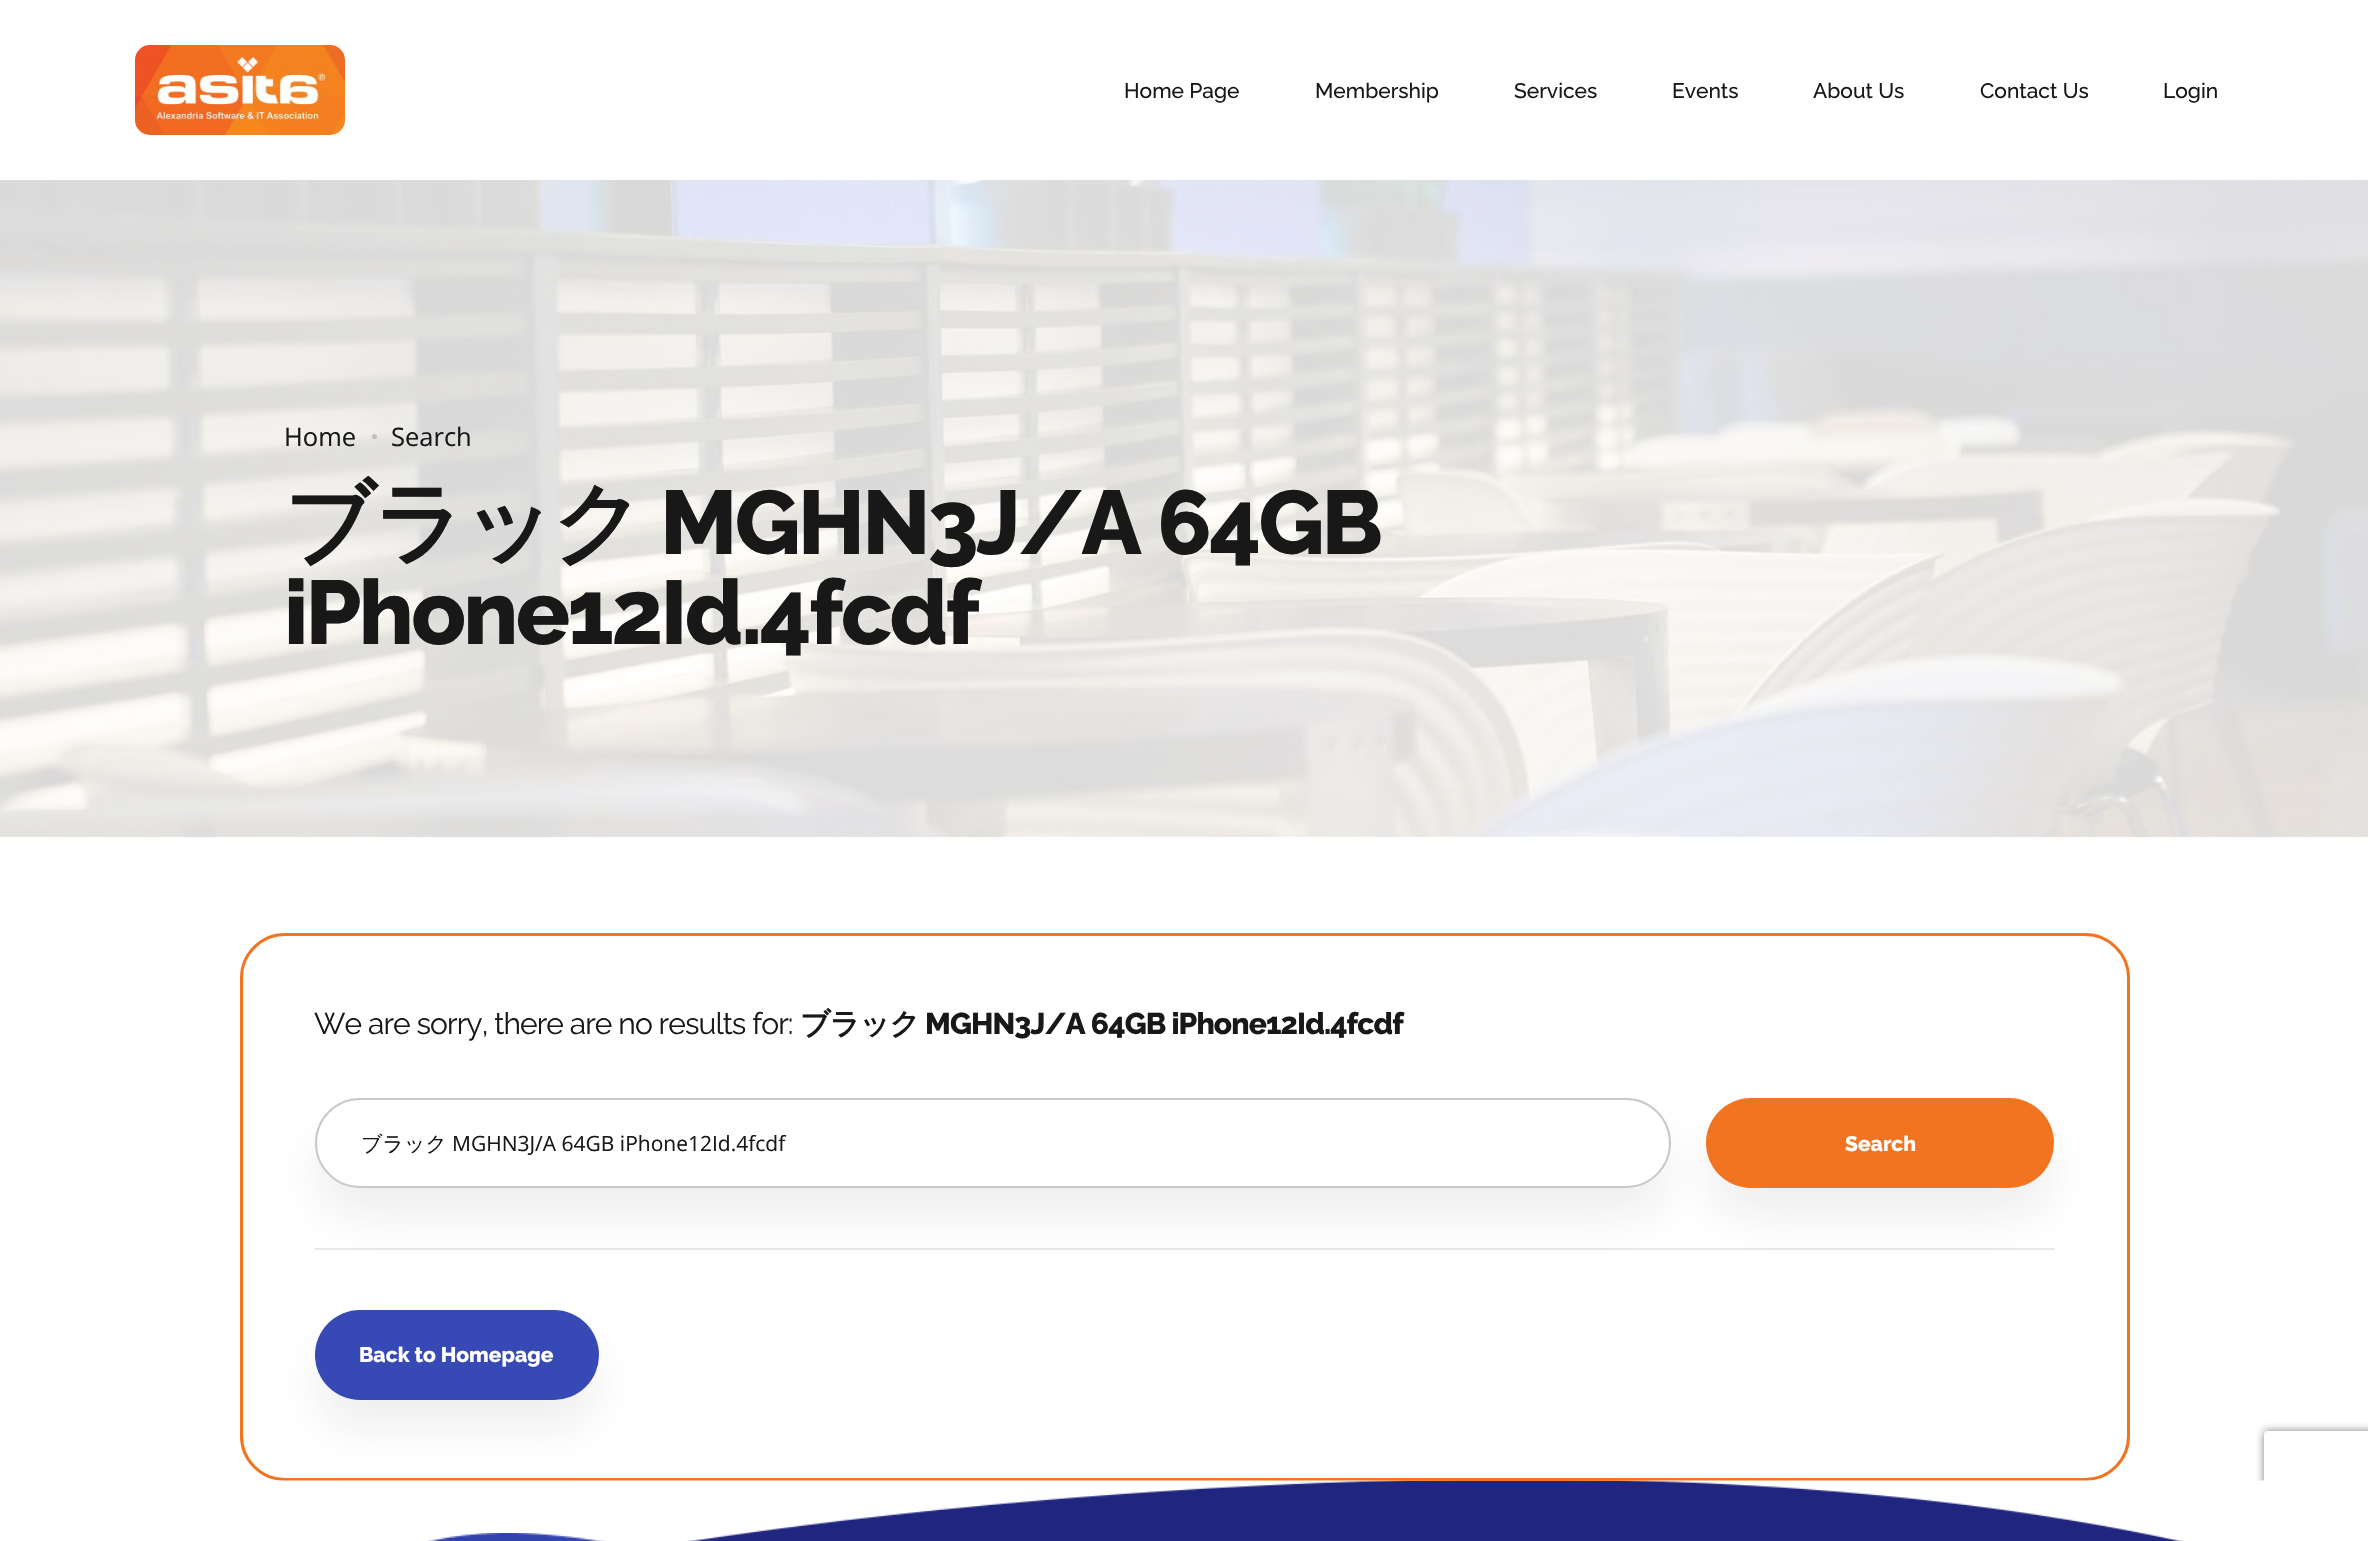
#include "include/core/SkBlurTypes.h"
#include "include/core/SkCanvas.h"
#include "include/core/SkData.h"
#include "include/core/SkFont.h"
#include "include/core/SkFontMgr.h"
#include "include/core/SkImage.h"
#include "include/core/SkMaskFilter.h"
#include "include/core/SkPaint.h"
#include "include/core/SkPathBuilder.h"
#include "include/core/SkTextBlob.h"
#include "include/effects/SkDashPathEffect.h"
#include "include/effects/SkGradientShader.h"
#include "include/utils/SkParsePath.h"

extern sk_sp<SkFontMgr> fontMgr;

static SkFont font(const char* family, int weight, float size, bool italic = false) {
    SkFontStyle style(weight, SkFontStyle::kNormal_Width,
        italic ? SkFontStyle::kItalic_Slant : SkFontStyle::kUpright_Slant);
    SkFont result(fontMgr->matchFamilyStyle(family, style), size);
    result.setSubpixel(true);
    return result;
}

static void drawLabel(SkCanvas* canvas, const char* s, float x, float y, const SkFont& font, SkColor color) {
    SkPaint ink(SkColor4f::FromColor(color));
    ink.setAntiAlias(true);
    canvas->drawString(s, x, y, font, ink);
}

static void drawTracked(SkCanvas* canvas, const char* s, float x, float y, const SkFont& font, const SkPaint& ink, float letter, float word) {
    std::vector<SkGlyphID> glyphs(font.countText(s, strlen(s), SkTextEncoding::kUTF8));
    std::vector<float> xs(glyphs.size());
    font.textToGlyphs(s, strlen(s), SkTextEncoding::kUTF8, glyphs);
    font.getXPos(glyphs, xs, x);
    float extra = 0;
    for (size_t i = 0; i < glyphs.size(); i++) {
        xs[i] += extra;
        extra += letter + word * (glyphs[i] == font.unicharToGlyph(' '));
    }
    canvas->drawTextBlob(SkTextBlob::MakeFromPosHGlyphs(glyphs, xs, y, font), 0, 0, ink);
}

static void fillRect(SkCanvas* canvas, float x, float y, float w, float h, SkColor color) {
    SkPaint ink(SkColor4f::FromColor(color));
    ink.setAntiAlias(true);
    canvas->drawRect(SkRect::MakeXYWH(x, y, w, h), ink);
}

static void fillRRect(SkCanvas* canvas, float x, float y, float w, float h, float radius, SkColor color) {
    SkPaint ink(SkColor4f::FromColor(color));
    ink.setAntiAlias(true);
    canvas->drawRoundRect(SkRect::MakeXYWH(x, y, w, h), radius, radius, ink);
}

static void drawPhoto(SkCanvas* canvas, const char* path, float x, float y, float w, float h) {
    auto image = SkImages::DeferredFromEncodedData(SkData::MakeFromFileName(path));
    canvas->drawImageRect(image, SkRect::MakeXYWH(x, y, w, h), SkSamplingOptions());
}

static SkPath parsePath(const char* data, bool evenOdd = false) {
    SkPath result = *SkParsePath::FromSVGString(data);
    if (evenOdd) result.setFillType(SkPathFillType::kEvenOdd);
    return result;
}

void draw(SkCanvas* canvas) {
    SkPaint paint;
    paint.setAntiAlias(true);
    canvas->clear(0xFFFFFFFF);
    drawPhoto(canvas, "assets/img1.png", 135, 45, 210, 90);
    SkFont font1 = font("Raleway", 500, 21);
    drawLabel(canvas, "Home Page", 1124, 98, font1, 0xFF181818);
    drawLabel(canvas, "Membership", 1315, 98, font1, 0xFF181818);
    drawLabel(canvas, "Services", 1514, 98, font1, 0xFF181818);
    drawLabel(canvas, "Events", 1672, 98, font1, 0xFF181818);
    drawLabel(canvas, "About Us", 1813, 98, font1, 0xFF181818);
    drawLabel(canvas, "Contact Us", 1980, 98, font1, 0xFF181818);
    drawLabel(canvas, "Login", 2163, 98, font1, 0xFF181818);
    drawPhoto(canvas, "assets/img2.png", 0, 180, 2368, 657);
    SkFont font2 = font("Open Sans", 400, 25.5f);
    drawLabel(canvas, "Home", 284, 446, font2, 0xFF181818);
    paint.setColor(0x33181818);
    canvas->drawCircle(374.5f, 436.5f, 2.5f, paint);
    drawLabel(canvas, "Search", 391, 446, font2, 0xFF181818);
    SkFont font3 = font("WenQuanYi Zen Hei", 700, 90);
    paint.setColor(0xFF181818);
    drawTracked(canvas, "ブラック", 284, 554, font3, paint, -2.75f, 0);
    SkFont font4 = font("Raleway", 800, 90);
    drawTracked(canvas, "MGHN3J/A 64GB", 660, 554, font4, paint, -2.75f, 0);
    drawTracked(canvas, "iPhone12Id.4fcdf", 284, 644, font4, paint, -2.75f, 0);
    paint.setStroke(true);
    paint.setStrokeWidth(3);
    paint.setColor(0xFFF37420);
    canvas->drawRoundRect(SkRect::MakeXYWH(241.5f, 934.5f, 1887, 545), 43.5f, 43.5f, paint);
    SkFont font5 = font("Raleway", 400, 30);
    paint.setStroke(false);
    paint.setColor(0xFF181818);
    drawTracked(canvas, "We are sorry, there are no results for:", 314, 1034, font5, paint, -0.9f, 0);
    SkFont font6 = font("WenQuanYi Zen Hei", 700, 30);
    drawTracked(canvas, "ブラック", 800, 1034, font6, paint, -0.9f, 0);
    SkFont font7 = font("Raleway", 800, 30);
    drawTracked(canvas, "MGHN3J/A 64GB iPhone12Id.4fcdf", 925, 1034, font7, paint, -0.9f, 0);
    fillRect(canvas, 315, 1248, 1740, 2, 0xFFE9E9E9);
    canvas->save();
    canvas->clipPath(parsePath("M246 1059H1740V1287H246ZM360 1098H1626C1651 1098 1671 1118 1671 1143C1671 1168 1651 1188 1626 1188H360C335 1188 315 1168 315 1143C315 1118 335 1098 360 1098Z", true), true);
    paint.setColor(0x12222222);
    paint.setMaskFilter(SkMaskFilter::MakeBlur(kNormal_SkBlurStyle, 22.5f));
    canvas->drawRoundRect(SkRect::MakeXYWH(315, 1128, 1356, 90), 45, 45, paint);
    paint.setMaskFilter(nullptr);
    canvas->restore();
    paint.setStroke(true);
    paint.setStrokeWidth(2);
    paint.setColor(0x40222222);
    canvas->drawRoundRect(SkRect::MakeXYWH(316, 1099, 1354, 88), 44, 44, paint);
    SkFont font8 = font("WenQuanYi Zen Hei", 500, 21);
    drawLabel(canvas, "ブラック", 361, 1151, font8, 0xFF181818);
    SkFont font9 = font("Open Sans", 400, 21);
    drawLabel(canvas, "MGHN3J/A 64GB iPhone12Id.4fcdf", 452, 1151, font9, 0xFF181818);
    paint.setStroke(false);
    paint.setColor(0x12212121);
    paint.setMaskFilter(SkMaskFilter::MakeBlur(kNormal_SkBlurStyle, 22.5f));
    canvas->drawRoundRect(SkRect::MakeXYWH(1706, 1128, 348, 90), 45, 45, paint);
    paint.setMaskFilter(nullptr);
    fillRRect(canvas, 1706, 1098, 348, 90, 45, 0xFFF37420);
    SkFont font10 = font("Raleway", 800, 21);
    drawLabel(canvas, "Search", 1845, 1151, font10, 0xFFFFFFFF);
    paint.setMaskFilter(SkMaskFilter::MakeBlur(kNormal_SkBlurStyle, 22.5f));
    canvas->drawRoundRect(SkRect::MakeXYWH(315, 1340, 284, 90), 45, 45, paint);
    paint.setMaskFilter(nullptr);
    fillRRect(canvas, 315, 1310, 284, 90, 45, 0xFF3649B5);
    drawLabel(canvas, "Back to Homepage", 359, 1362, font10, 0xFFFFFFFF);
    fillRect(canvas, 686, 1481, 1498, 60, 0xFF20267F);
    canvas->save();
    canvas->clipPath(parsePath("M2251 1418H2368V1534H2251ZM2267 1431H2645C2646.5 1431 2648 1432.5 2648 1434V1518C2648 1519.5 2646.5 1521 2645 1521H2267C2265.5 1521 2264 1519.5 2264 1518V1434C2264 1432.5 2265.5 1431 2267 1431Z", true), true);
    paint.setColor(0xFF808080);
    paint.setMaskFilter(SkMaskFilter::MakeBlur(kNormal_SkBlurStyle, 4));
    canvas->drawRoundRect(SkRect::MakeXYWH(2264, 1431, 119, 90), 3, 3, paint);
    paint.setMaskFilter(nullptr);
    canvas->restore();
    drawPhoto(canvas, "assets/img3.png", 0, 1480, 2368, 61);
    drawPhoto(canvas, "assets/img4.png", 427, 1533, 179, 8);
}
